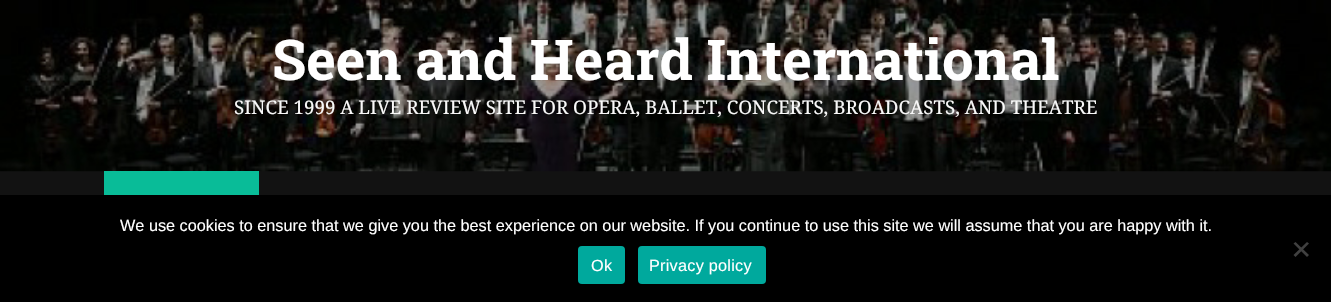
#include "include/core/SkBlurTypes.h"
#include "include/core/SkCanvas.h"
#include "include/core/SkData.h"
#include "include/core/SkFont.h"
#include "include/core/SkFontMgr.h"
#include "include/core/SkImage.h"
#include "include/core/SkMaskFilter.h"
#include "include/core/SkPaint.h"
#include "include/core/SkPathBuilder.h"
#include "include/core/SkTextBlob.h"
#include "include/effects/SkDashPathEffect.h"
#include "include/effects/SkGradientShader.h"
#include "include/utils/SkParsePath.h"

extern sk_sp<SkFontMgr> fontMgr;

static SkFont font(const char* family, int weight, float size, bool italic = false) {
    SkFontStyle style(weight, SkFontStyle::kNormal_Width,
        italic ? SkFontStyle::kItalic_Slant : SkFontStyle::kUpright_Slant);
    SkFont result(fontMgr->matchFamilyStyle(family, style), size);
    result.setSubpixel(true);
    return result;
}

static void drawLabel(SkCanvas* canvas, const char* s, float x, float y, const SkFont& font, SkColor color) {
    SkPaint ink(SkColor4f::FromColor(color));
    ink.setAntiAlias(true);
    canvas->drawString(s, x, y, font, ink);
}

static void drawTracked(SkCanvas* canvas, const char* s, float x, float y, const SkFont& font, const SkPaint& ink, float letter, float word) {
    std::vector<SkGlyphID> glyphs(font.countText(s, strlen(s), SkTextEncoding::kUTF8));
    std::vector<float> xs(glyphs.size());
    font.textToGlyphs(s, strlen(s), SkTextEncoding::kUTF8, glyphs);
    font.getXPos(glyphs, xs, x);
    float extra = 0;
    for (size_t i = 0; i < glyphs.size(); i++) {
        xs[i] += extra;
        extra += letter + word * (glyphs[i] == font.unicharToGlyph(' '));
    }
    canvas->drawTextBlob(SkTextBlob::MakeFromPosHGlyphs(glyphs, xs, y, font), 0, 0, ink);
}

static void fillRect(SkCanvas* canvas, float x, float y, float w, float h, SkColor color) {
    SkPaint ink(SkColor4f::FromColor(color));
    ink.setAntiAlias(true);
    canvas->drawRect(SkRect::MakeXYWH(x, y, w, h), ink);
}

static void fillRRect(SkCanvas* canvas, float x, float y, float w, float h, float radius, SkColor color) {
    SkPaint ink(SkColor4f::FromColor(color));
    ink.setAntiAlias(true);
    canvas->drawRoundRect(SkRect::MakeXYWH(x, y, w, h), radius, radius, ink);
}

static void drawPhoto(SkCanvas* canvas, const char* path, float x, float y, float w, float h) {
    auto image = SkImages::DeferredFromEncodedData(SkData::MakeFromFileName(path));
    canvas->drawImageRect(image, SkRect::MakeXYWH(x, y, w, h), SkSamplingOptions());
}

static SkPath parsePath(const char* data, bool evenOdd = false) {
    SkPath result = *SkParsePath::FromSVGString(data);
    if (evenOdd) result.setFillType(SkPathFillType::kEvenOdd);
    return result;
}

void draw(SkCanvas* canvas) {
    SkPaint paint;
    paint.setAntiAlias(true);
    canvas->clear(0xFF121212);
    drawPhoto(canvas, "assets/img1.png", 0, 0, 1331, 172);
    SkFont font1 = font("Roboto Slab", 700, 56.25f);
    drawLabel(canvas, "Seen and Heard International", 272, 80, font1, 0xFFFFFFFF);
    SkFont font2 = font("Noto Serif", 400, 18.75f);
    drawLabel(canvas, "SINCE 1999 A LIVE REVIEW SITE FOR OPERA, BALLET, CONCERTS, BROADCASTS, AND THEATRE", 234, 114, font2, 0xFFF9F9F9);
    fillRect(canvas, 104, 171, 155, 24, 0xFF09BC98);
    fillRect(canvas, 0, 195, 1331, 107, 0xFF000000);
    SkFont font3 = font("Liberation Sans", 400, 16.25f);
    drawLabel(canvas, "We use cookies to ensure that we give you the best experience on our website. If you continue to use this site we will assume that you are happy with it.", 120, 231, font3, 0xFFFFFFFF);
    paint.setColor(0xFF404040);
    canvas->drawPath(parsePath("M1307 242L1309 243.5L1295.5 257L1293.5 255Z"), paint);
    canvas->drawPath(parsePath("M1293.5 243.5L1295.5 242L1309 255L1307 257Z"), paint);
    fillRRect(canvas, 578, 246, 47, 38, 4, 0xFF00A99D);
    paint.setColor(0xFFFFFFFF);
    drawTracked(canvas, "Ok", 591, 271, font3, paint, 0.25f, 0);
    fillRRect(canvas, 638, 246, 128, 38, 4, 0xFF00A99D);
    drawTracked(canvas, "Privacy policy", 649, 271, font3, paint, 0.25f, 0);
}
